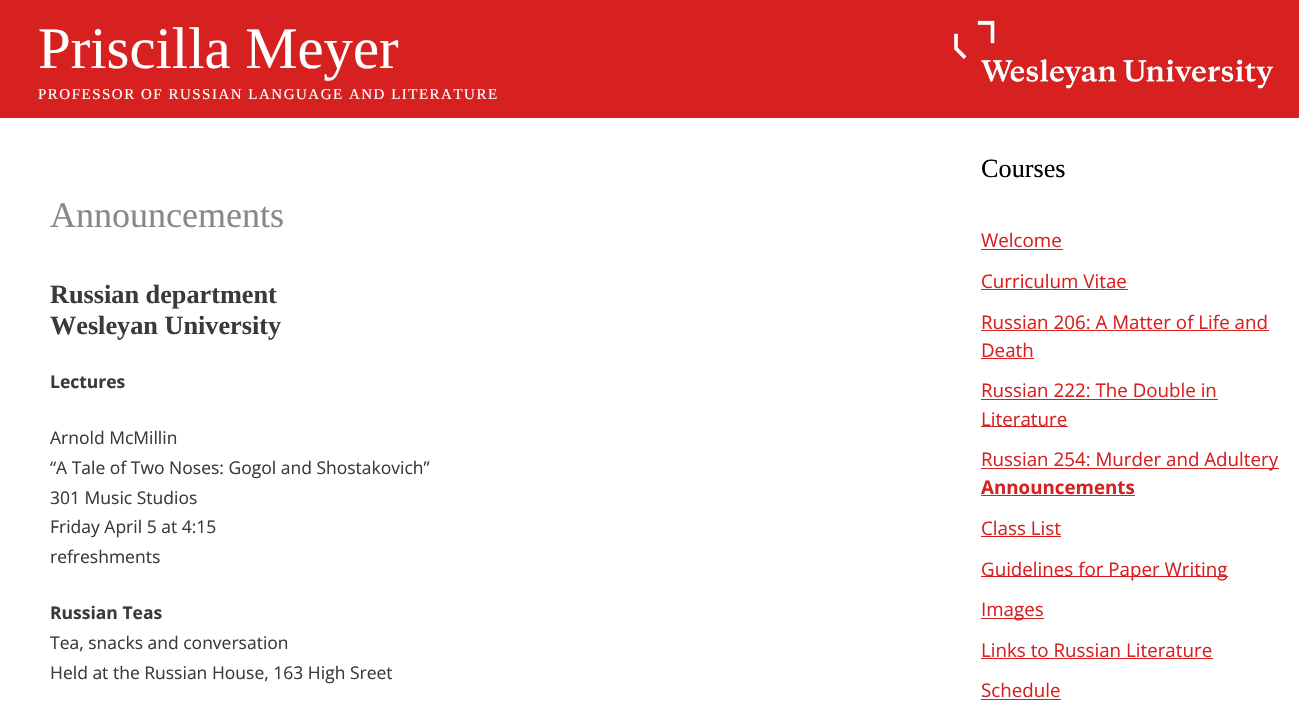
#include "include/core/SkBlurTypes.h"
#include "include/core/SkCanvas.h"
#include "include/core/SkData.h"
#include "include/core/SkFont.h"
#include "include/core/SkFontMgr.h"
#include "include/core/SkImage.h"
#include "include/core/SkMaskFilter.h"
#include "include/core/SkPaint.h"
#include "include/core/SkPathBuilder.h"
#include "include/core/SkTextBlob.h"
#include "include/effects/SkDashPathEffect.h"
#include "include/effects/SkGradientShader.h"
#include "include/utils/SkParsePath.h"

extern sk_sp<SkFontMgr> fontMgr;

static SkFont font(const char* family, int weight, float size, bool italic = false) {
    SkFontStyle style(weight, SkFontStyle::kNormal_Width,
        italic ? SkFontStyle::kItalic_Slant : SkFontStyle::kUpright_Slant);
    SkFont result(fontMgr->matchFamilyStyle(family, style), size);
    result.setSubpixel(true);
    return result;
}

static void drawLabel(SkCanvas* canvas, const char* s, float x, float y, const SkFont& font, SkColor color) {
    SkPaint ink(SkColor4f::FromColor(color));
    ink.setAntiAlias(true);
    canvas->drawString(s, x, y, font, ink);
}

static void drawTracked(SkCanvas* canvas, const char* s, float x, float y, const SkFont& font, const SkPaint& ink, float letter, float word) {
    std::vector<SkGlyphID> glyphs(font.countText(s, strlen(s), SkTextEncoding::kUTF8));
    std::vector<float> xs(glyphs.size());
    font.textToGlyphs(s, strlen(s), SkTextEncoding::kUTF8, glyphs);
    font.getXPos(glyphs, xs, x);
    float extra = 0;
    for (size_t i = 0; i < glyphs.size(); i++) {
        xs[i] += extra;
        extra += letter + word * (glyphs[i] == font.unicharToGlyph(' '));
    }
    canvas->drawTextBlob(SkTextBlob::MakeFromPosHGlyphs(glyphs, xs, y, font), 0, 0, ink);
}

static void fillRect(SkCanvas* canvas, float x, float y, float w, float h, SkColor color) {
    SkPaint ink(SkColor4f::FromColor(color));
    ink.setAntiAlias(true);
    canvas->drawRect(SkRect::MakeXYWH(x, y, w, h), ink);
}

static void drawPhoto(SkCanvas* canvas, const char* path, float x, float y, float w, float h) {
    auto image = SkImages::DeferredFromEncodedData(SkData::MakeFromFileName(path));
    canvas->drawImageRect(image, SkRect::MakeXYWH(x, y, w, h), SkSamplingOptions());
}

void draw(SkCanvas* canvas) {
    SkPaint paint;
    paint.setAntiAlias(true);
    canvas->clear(0xFFD72121);
    SkFont font1 = font("Liberation Serif", 400, 58.75f);
    drawLabel(canvas, "Priscilla Meyer", 38, 68, font1, 0xFFFFFFFF);
    SkFont font2 = font("Liberation Serif", 400, 15);
    paint.setColor(0xFFFFFFFF);
    drawTracked(canvas, "PROFESSOR OF RUSSIAN LANGUAGE AND LITERATURE", 38, 99, font2, paint, 1.5f, 0);
    drawPhoto(canvas, "assets/img1.png", 954, 20, 320, 69);
    fillRect(canvas, 0, 118, 1299, 586, 0xFFFFFFFF);
    SkFont font3 = font("Liberation Serif", 400, 36);
    drawLabel(canvas, "Announcements", 50, 227, font3, 0xFF888888);
    SkFont font4 = font("Liberation Serif", 700, 26.25f);
    drawLabel(canvas, "Russian department", 50, 303, font4, 0xFF3A3A3A);
    drawLabel(canvas, "Wesleyan University", 50, 334, font4, 0xFF3A3A3A);
    SkFont font5 = font("Open Sans", 700, 17.5f);
    drawLabel(canvas, "Lectures", 50, 388, font5, 0xFF3A3A3A);
    SkFont font6 = font("Open Sans", 400, 17.5f);
    drawLabel(canvas, "Arnold McMillin", 50, 444, font6, 0xFF3A3A3A);
    drawLabel(canvas, "“A Tale of Two Noses: Gogol and Shostakovich”", 50, 474, font6, 0xFF3A3A3A);
    drawLabel(canvas, "301 Music Studios", 50, 504, font6, 0xFF3A3A3A);
    drawLabel(canvas, "Friday April 5 at 4:15", 50, 533, font6, 0xFF3A3A3A);
    drawLabel(canvas, "refreshments", 50, 563, font6, 0xFF3A3A3A);
    drawLabel(canvas, "Russian Teas", 50, 619, font5, 0xFF3A3A3A);
    drawLabel(canvas, "Tea, snacks and conversation", 50, 649, font6, 0xFF3A3A3A);
    drawLabel(canvas, "Held at the Russian House, 163 High Sreet", 50, 679, font6, 0xFF3A3A3A);
    SkFont font7 = font("Liberation Serif", 400, 26.25f);
    drawLabel(canvas, "Courses", 981, 177, font7, 0xFF000000);
    SkFont font8 = font("Open Sans", 400, 18.75f);
    drawLabel(canvas, "Welcome", 981, 247, font8, 0xFFD72121);
    fillRect(canvas, 981, 249, 82, 1, 0xFFD72121);
    drawLabel(canvas, "Curriculum Vitae", 981, 288, font8, 0xFFD72121);
    fillRect(canvas, 981, 289, 147, 1, 0xFFD72121);
    drawLabel(canvas, "Russian 206: A Matter of Life and", 981, 329, font8, 0xFFD72121);
    fillRect(canvas, 981, 330, 288, 1, 0xFFD72121);
    drawLabel(canvas, "Death", 981, 357, font8, 0xFFD72121);
    fillRect(canvas, 981, 358, 53, 1, 0xFFD72121);
    drawLabel(canvas, "Russian 222: The Double in", 981, 397, font8, 0xFFD72121);
    fillRect(canvas, 981, 399, 237, 1, 0xFFD72121);
    fillRect(canvas, 981, 426, 87, 1, 0xFFD72121);
    drawLabel(canvas, "Literature", 981, 426, font8, 0xFFD72121);
    fillRect(canvas, 981, 468, 298, 1, 0xFFD72121);
    drawLabel(canvas, "Russian 254: Murder and Adultery", 981, 466, font8, 0xFFD72121);
    SkFont font9 = font("Open Sans", 700, 18.75f);
    drawLabel(canvas, "Announcements", 981, 494, font9, 0xFFD72121);
    fillRect(canvas, 981, 495, 154, 1, 0xFFD72121);
    drawLabel(canvas, "Class List", 981, 535, font8, 0xFFD72121);
    fillRect(canvas, 981, 536, 80, 1, 0xFFD72121);
    fillRect(canvas, 981, 576, 247, 1, 0xFFD72121);
    drawLabel(canvas, "Guidelines for Paper Writing", 981, 576, font8, 0xFFD72121);
    fillRect(canvas, 981, 618, 63, 1, 0xFFD72121);
    drawLabel(canvas, "Images", 981, 616, font8, 0xFFD72121);
    drawLabel(canvas, "Links to Russian Literature", 981, 657, font8, 0xFFD72121);
    fillRect(canvas, 981, 658, 232, 1, 0xFFD72121);
    drawLabel(canvas, "Schedule", 981, 697, font8, 0xFFD72121);
    fillRect(canvas, 981, 699, 80, 1, 0xFFD72121);
}
